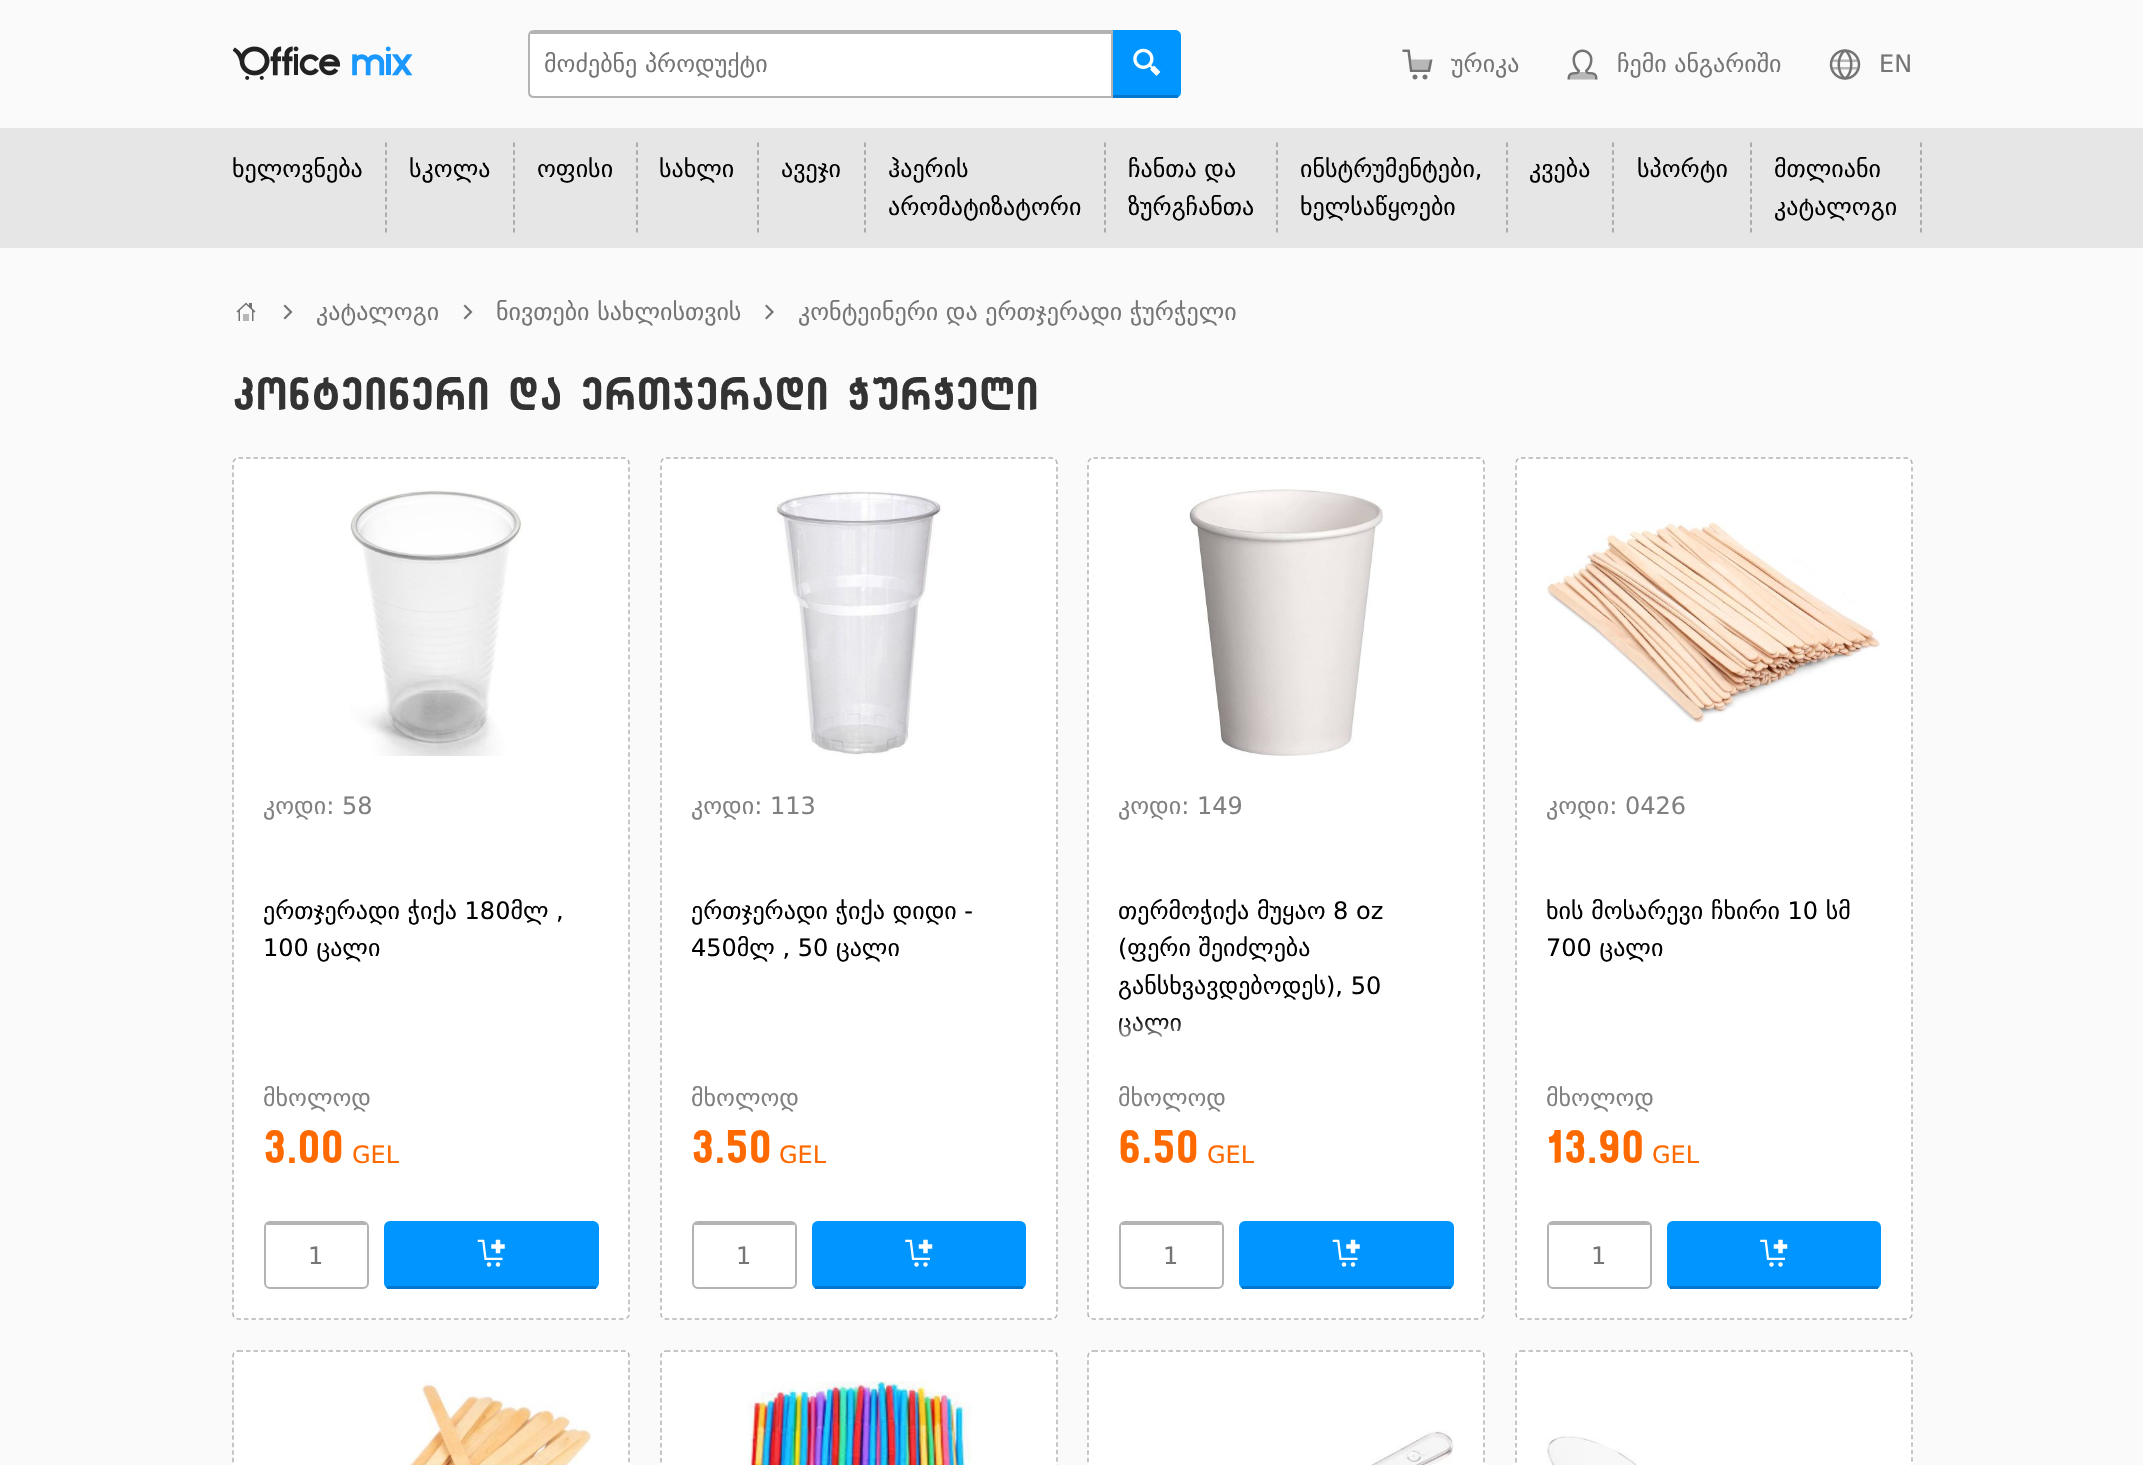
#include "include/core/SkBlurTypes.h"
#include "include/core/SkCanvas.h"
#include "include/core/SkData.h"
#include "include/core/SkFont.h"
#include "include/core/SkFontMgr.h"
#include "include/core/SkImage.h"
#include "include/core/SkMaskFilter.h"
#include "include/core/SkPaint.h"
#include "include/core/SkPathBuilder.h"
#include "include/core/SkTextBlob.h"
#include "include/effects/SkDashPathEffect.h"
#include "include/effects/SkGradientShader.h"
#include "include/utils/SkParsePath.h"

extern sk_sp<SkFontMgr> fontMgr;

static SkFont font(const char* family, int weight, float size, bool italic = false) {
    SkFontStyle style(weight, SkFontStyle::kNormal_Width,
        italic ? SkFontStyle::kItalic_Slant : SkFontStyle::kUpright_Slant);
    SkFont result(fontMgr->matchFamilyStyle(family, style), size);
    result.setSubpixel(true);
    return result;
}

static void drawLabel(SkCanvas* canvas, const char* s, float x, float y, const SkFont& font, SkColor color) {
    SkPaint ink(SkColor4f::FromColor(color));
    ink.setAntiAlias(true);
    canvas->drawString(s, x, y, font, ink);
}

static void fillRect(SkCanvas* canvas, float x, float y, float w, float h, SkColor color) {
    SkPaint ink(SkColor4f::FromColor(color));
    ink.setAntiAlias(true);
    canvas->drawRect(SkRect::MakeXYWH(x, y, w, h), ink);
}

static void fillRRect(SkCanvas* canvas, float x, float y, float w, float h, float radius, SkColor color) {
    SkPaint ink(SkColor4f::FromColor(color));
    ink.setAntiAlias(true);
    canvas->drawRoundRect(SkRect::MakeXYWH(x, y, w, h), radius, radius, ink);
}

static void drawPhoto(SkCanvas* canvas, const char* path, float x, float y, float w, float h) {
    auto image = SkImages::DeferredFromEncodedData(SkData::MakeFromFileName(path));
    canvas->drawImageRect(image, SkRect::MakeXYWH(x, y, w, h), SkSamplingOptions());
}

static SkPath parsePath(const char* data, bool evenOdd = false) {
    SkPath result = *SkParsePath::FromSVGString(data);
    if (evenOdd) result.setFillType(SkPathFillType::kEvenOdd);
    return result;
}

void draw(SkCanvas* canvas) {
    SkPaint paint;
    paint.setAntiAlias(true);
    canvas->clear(0xFFFAFAFA);
    drawPhoto(canvas, "assets/img1.png", 233, 46, 180, 34);
    paint.setColor(0xFFFFFFFF);
    canvas->drawPath(parsePath("M534 33H1112V96H534C532 96 530 94 530 92V36C530 34 532 33 534 33Z"), paint);
    paint.setStroke(true);
    paint.setStrokeWidth(2);
    paint.setColor(0xFFB3B3B3);
    canvas->drawPath(parsePath("M534 31H1112V97H534C531 97 529 95 529 92V36C529 33 531 31 534 31Z"), paint);
    fillRect(canvas, 531, 32, 582, 2, 0xFFB3B3B3);
    SkFont font1 = font("DejaVu Sans", 400, 24);
    drawLabel(canvas, "მოძებნე პროდუქტი", 544, 72, font1, 0xFF757575);
    paint.setStroke(false);
    paint.setColor(0xFF0095FF);
    canvas->drawPath(parsePath("M1113 30H1175C1178.5 30 1181 32.5 1181 36V92C1181 95.5 1178.5 98 1175 98H1113Z"), paint);
    drawPhoto(canvas, "assets/img2.png", 1133, 48, 28, 28);
    fillRect(canvas, 1113, 95, 65, 3, 0xFF0077CC);
    drawPhoto(canvas, "assets/img3.png", 1402, 49, 31, 31);
    drawLabel(canvas, "ურიკა", 1451, 72, font1, 0xFF757575);
    drawPhoto(canvas, "assets/img4.png", 1567, 49, 31, 31);
    drawLabel(canvas, "ჩემი ანგარიში", 1617, 72, font1, 0xFF757575);
    drawPhoto(canvas, "assets/img5.png", 1829, 49, 32, 31);
    drawLabel(canvas, "EN", 1879, 72, font1, 0xFF757575);
    fillRect(canvas, 0, 128, 2143, 120, 0xFFE6E6E6);
    paint.setStroke(true);
    paint.setStrokeWidth(1.5f);
    paint.setColor(0xFF999999);
    paint.setPathEffect(SkDashPathEffect::Make({{4.5f, 3.27f}}, 0));
    canvas->drawPath(parsePath("M386 142.5V232.5"), paint);
    paint.setPathEffect(nullptr);
    drawLabel(canvas, "ხელოვნება", 232, 177, font1, 0xFF000000);
    paint.setPathEffect(SkDashPathEffect::Make({{4.5f, 3.27f}}, 0));
    canvas->drawPath(parsePath("M514 142.5V232.5"), paint);
    paint.setPathEffect(nullptr);
    drawLabel(canvas, "სკოლა", 409, 177, font1, 0xFF000000);
    paint.setPathEffect(SkDashPathEffect::Make({{4.5f, 3.27f}}, 0));
    canvas->drawPath(parsePath("M637 142.5V232.5"), paint);
    paint.setPathEffect(nullptr);
    drawLabel(canvas, "ოფისი", 537, 177, font1, 0xFF000000);
    paint.setPathEffect(SkDashPathEffect::Make({{4.5f, 3.27f}}, 0));
    canvas->drawPath(parsePath("M758 142.5V232.5"), paint);
    paint.setPathEffect(nullptr);
    drawLabel(canvas, "სახლი", 659, 177, font1, 0xFF000000);
    paint.setPathEffect(SkDashPathEffect::Make({{4.5f, 3.27f}}, 0));
    canvas->drawPath(parsePath("M865 142.5V232.5"), paint);
    paint.setPathEffect(nullptr);
    drawLabel(canvas, "ავეჯი", 781, 177, font1, 0xFF000000);
    paint.setPathEffect(SkDashPathEffect::Make({{4.5f, 3.27f}}, 0));
    canvas->drawPath(parsePath("M1105 142.5V232.5"), paint);
    paint.setPathEffect(nullptr);
    drawLabel(canvas, "ჰაერის", 888, 177, font1, 0xFF000000);
    drawLabel(canvas, "არომატიზატორი", 888, 215, font1, 0xFF000000);
    paint.setPathEffect(SkDashPathEffect::Make({{4.5f, 3.27f}}, 0));
    canvas->drawPath(parsePath("M1277 142.5V232.5"), paint);
    paint.setPathEffect(nullptr);
    drawLabel(canvas, "ჩანთა და", 1128, 177, font1, 0xFF000000);
    drawLabel(canvas, "ზურგჩანთა", 1128, 215, font1, 0xFF000000);
    paint.setPathEffect(SkDashPathEffect::Make({{4.5f, 3.27f}}, 0));
    canvas->drawPath(parsePath("M1507 142.5V232.5"), paint);
    paint.setPathEffect(nullptr);
    drawLabel(canvas, "ინსტრუმენტები,", 1300, 177, font1, 0xFF000000);
    drawLabel(canvas, "ხელსაწყოები", 1300, 215, font1, 0xFF000000);
    paint.setPathEffect(SkDashPathEffect::Make({{4.5f, 3.27f}}, 0));
    canvas->drawPath(parsePath("M1613 142.5V232.5"), paint);
    paint.setPathEffect(nullptr);
    drawLabel(canvas, "კვება", 1529, 177, font1, 0xFF000000);
    paint.setPathEffect(SkDashPathEffect::Make({{4.5f, 3.27f}}, 0));
    canvas->drawPath(parsePath("M1751 142.5V232.5"), paint);
    paint.setPathEffect(nullptr);
    drawLabel(canvas, "სპორტი", 1637, 177, font1, 0xFF000000);
    paint.setPathEffect(SkDashPathEffect::Make({{4.5f, 3.27f}}, 0));
    canvas->drawPath(parsePath("M1921 142.5V232.5"), paint);
    paint.setPathEffect(nullptr);
    drawLabel(canvas, "მთლიანი", 1774, 177, font1, 0xFF000000);
    drawLabel(canvas, "კატალოგი", 1774, 215, font1, 0xFF000000);
    drawPhoto(canvas, "assets/img6.png", 236, 302, 20, 19);
    drawPhoto(canvas, "assets/img7.png", 283, 304, 10, 16);
    drawLabel(canvas, "კატალოგი", 316, 320, font1, 0xFF757575);
    drawPhoto(canvas, "assets/img7.png", 463, 304, 10, 16);
    drawLabel(canvas, "ნივთები სახლისთვის", 496, 320, font1, 0xFF757575);
    drawPhoto(canvas, "assets/img8.png", 765, 304, 9, 16);
    drawLabel(canvas, "კონტეინერი და ერთჯერადი ჭურჭელი", 798, 320, font1, 0xFF757575);
    SkFont font2 = font("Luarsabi", 700, 45);
    drawLabel(canvas, "კონტეინერი და ერთჯერადი ჭურჭელი", 232, 410, font2, 0xFF333333);
    fillRRect(canvas, 233, 458, 397, 862, 6, 0xFFFFFFFF);
    paint.setColor(0xFFB3B3B3);
    paint.setPathEffect(SkDashPathEffect::Make({{4.5f, 3}}, 0));
    canvas->drawPath(parsePath("M238.5 458H624C627 458 629 460.5 629 463.5V1314C629 1317 627 1319 624 1319H238.5C235.5 1319 233 1317 233 1314V463.5C233 460.5 235.5 458 238.5 458Z"), paint);
    paint.setPathEffect(nullptr);
    drawPhoto(canvas, "assets/img9.png", 350, 489, 172, 267);
    drawLabel(canvas, "კოდი: 58", 263, 814, font1, 0xFF808080);
    drawLabel(canvas, "ერთჯერადი ჭიქა 180მლ ,", 263, 919, font1, 0xFF000000);
    drawLabel(canvas, "100 ცალი", 263, 956, font1, 0xFF000000);
    drawLabel(canvas, "მხოლოდ", 263, 1106, font1, 0xFF808080);
    drawLabel(canvas, "3.00", 263, 1163, font2, 0xFFFF6A00);
    drawLabel(canvas, "GEL", 352, 1163, font1, 0xFFFF6A00);
    paint.setStrokeWidth(2);
    canvas->drawRoundRect(SkRect::MakeXYWH(265, 1222, 103, 66), 5, 5, paint);
    fillRect(canvas, 267, 1223, 99, 2, 0xFFB3B3B3);
    drawLabel(canvas, "1", 308, 1264, font1, 0xFF757575);
    fillRRect(canvas, 384, 1221, 215, 68, 6, 0xFF0095FF);
    drawPhoto(canvas, "assets/img10.png", 477, 1239, 28, 28);
    fillRect(canvas, 387, 1286, 209, 3, 0xFF0077CC);
    fillRRect(canvas, 660, 458, 398, 862, 6, 0xFFFFFFFF);
    paint.setStrokeWidth(1.5f);
    paint.setPathEffect(SkDashPathEffect::Make({{4.5f, 3}}, 0));
    canvas->drawPath(parsePath("M666 458H1051.5C1054.5 458 1057 460.5 1057 463.5V1314C1057 1317 1054.5 1319 1051.5 1319H666C663 1319 661 1317 661 1314V463.5C661 460.5 663 458 666 458Z"), paint);
    paint.setPathEffect(nullptr);
    drawPhoto(canvas, "assets/img11.png", 775, 491, 168, 265);
    drawLabel(canvas, "კოდი: 113", 691, 814, font1, 0xFF808080);
    drawLabel(canvas, "ერთჯერადი ჭიქა დიდი -", 691, 919, font1, 0xFF000000);
    drawLabel(canvas, "450მლ , 50 ცალი", 691, 956, font1, 0xFF000000);
    drawLabel(canvas, "მხოლოდ", 691, 1106, font1, 0xFF808080);
    drawLabel(canvas, "3.50", 691, 1163, font2, 0xFFFF6A00);
    drawLabel(canvas, "GEL", 779, 1163, font1, 0xFFFF6A00);
    paint.setStrokeWidth(2);
    canvas->drawRoundRect(SkRect::MakeXYWH(693, 1222, 103, 66), 5, 5, paint);
    fillRect(canvas, 695, 1223, 99, 2, 0xFFB3B3B3);
    drawLabel(canvas, "1", 736, 1264, font1, 0xFF757575);
    fillRRect(canvas, 812, 1221, 214, 68, 6, 0xFF0095FF);
    drawPhoto(canvas, "assets/img12.png", 905, 1239, 28, 28);
    fillRect(canvas, 815, 1286, 208, 3, 0xFF0077CC);
    fillRRect(canvas, 1088, 458, 397, 862, 6, 0xFFFFFFFF);
    paint.setStrokeWidth(1.5f);
    paint.setPathEffect(SkDashPathEffect::Make({{4.5f, 3}}, 0));
    canvas->drawPath(parsePath("M1093.5 458H1479C1482 458 1484 460.5 1484 463.5V1314C1484 1317 1482 1319 1479 1319H1093.5C1090.5 1319 1088 1317 1088 1314V463.5C1088 460.5 1090.5 458 1093.5 458Z"), paint);
    paint.setPathEffect(nullptr);
    drawPhoto(canvas, "assets/img13.png", 1189, 489, 194, 267);
    drawLabel(canvas, "კოდი: 149", 1118, 814, font1, 0xFF808080);
    drawLabel(canvas, "თერმოჭიქა მუყაო 8 oz", 1118, 919, font1, 0xFF000000);
    drawLabel(canvas, "(ფერი შეიძლება", 1118, 956, font1, 0xFF000000);
    drawLabel(canvas, "განსხვავდებოდეს), 50", 1118, 994, font1, 0xFF000000);
    drawLabel(canvas, "ცალი", 1118, 1031, font1, 0xFF000000);
    paint.setStroke(false);
    {
        const SkColor colors[] = {0x00FFFFFF, 0xFFFFFFFF};
        const float stops[] = {0, 1};
        const SkPoint ends[] = {{1286, 1019}, {1286, 1049}};
        paint.setShader(SkGradientShader::MakeLinear(ends, colors, stops, 2, SkTileMode::kClamp));
        paint.setAlpha(255);
    }
    canvas->drawRect(SkRect::MakeXYWH(1119, 1020, 62, 17), paint);
    drawLabel(canvas, "მხოლოდ", 1118, 1106, font1, 0xFF808080);
    drawLabel(canvas, "6.50", 1118, 1163, font2, 0xFFFF6A00);
    drawLabel(canvas, "GEL", 1207, 1163, font1, 0xFFFF6A00);
    paint.setStroke(true);
    paint.setStrokeWidth(2);
    paint.setShader(nullptr);
    paint.setColor(0xFFB3B3B3);
    canvas->drawRoundRect(SkRect::MakeXYWH(1120, 1222, 103, 66), 5, 5, paint);
    fillRect(canvas, 1122, 1223, 99, 2, 0xFFB3B3B3);
    drawLabel(canvas, "1", 1163, 1264, font1, 0xFF757575);
    fillRRect(canvas, 1239, 1221, 215, 68, 6, 0xFF0095FF);
    drawPhoto(canvas, "assets/img10.png", 1332, 1239, 28, 28);
    fillRect(canvas, 1242, 1286, 209, 3, 0xFF0077CC);
    fillRRect(canvas, 1515, 458, 398, 862, 6, 0xFFFFFFFF);
    paint.setStrokeWidth(1.5f);
    paint.setPathEffect(SkDashPathEffect::Make({{4.5f, 3}}, 0));
    canvas->drawPath(parsePath("M1521 458H1906.5C1909.5 458 1912 460.5 1912 463.5V1314C1912 1317 1909.5 1319 1906.5 1319H1521C1518 1319 1516 1317 1516 1314V463.5C1516 460.5 1518 458 1521 458Z"), paint);
    paint.setPathEffect(nullptr);
    drawPhoto(canvas, "assets/img14.png", 1546, 522, 334, 201);
    drawLabel(canvas, "კოდი: 0426", 1546, 814, font1, 0xFF808080);
    drawLabel(canvas, "ხის მოსარევი ჩხირი 10 სმ", 1546, 919, font1, 0xFF000000);
    drawLabel(canvas, "700 ცალი", 1546, 956, font1, 0xFF000000);
    drawLabel(canvas, "მხოლოდ", 1546, 1106, font1, 0xFF808080);
    drawLabel(canvas, "13.90", 1546, 1163, font2, 0xFFFF6A00);
    drawLabel(canvas, "GEL", 1652, 1163, font1, 0xFFFF6A00);
    paint.setStrokeWidth(2);
    canvas->drawRoundRect(SkRect::MakeXYWH(1548, 1222, 103, 66), 5, 5, paint);
    fillRect(canvas, 1550, 1223, 99, 2, 0xFFB3B3B3);
    drawLabel(canvas, "1", 1591, 1264, font1, 0xFF757575);
    fillRRect(canvas, 1667, 1221, 214, 68, 6, 0xFF0095FF);
    drawPhoto(canvas, "assets/img12.png", 1760, 1239, 28, 28);
    fillRect(canvas, 1670, 1286, 208, 3, 0xFF0077CC);
    paint.setStroke(false);
    paint.setColor(0xFFFFFFFF);
    canvas->drawPath(parsePath("M239 1350H624C627.5 1350 630 1352.5 630 1356V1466H233V1356C233 1352.5 235.5 1350 239 1350Z"), paint);
    paint.setStroke(true);
    paint.setStrokeWidth(1.5f);
    paint.setColor(0xFFB3B3B3);
    paint.setPathEffect(SkDashPathEffect::Make({{4.5f, 3}}, 0));
    canvas->drawPath(parsePath("M238.5 1351H624C627 1351 629 1353 629 1356V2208C629 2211 627 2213 624 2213H238.5C235.5 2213 233 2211 233 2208V1356C233 1353 235.5 1351 238.5 1351Z"), paint);
    paint.setPathEffect(nullptr);
    drawPhoto(canvas, "assets/img15.png", 408, 1381, 186, 84);
    paint.setStroke(false);
    paint.setColor(0xFFFFFFFF);
    canvas->drawPath(parsePath("M666 1350H1052C1055.5 1350 1058 1352.5 1058 1356V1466H660V1356C660 1352.5 662.5 1350 666 1350Z"), paint);
    paint.setStroke(true);
    paint.setColor(0xFFB3B3B3);
    paint.setPathEffect(SkDashPathEffect::Make({{4.5f, 3}}, 0));
    canvas->drawPath(parsePath("M666 1351H1051.5C1054.5 1351 1057 1353 1057 1356V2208C1057 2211 1054.5 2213 1051.5 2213H666C663 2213 661 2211 661 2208V1356C661 1353 663 1351 666 1351Z"), paint);
    paint.setPathEffect(nullptr);
    drawPhoto(canvas, "assets/img16.png", 747, 1381, 225, 84);
    paint.setStroke(false);
    paint.setColor(0xFFFFFFFF);
    canvas->drawPath(parsePath("M1094 1350H1479C1482.5 1350 1485 1352.5 1485 1356V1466H1088V1356C1088 1352.5 1090.5 1350 1094 1350Z"), paint);
    paint.setStroke(true);
    paint.setColor(0xFFB3B3B3);
    paint.setPathEffect(SkDashPathEffect::Make({{4.5f, 3}}, 0));
    canvas->drawPath(parsePath("M1093.5 1351H1479C1482 1351 1484 1353 1484 1356V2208C1484 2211 1482 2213 1479 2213H1093.5C1090.5 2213 1088 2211 1088 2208V1356C1088 1353 1090.5 1351 1093.5 1351Z"), paint);
    paint.setPathEffect(nullptr);
    drawPhoto(canvas, "assets/img17.png", 1371, 1430, 83, 35);
    paint.setStroke(false);
    paint.setColor(0xFFFFFFFF);
    canvas->drawPath(parsePath("M1521 1350H1907C1910.5 1350 1913 1352.5 1913 1356V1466H1515V1356C1515 1352.5 1517.5 1350 1521 1350Z"), paint);
    paint.setStroke(true);
    paint.setColor(0xFFB3B3B3);
    paint.setPathEffect(SkDashPathEffect::Make({{4.5f, 3}}, 0));
    canvas->drawPath(parsePath("M1521 1351H1906.5C1909.5 1351 1912 1353 1912 1356V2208C1912 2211 1909.5 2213 1906.5 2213H1521C1518 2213 1516 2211 1516 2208V1356C1516 1353 1518 1351 1521 1351Z"), paint);
    paint.setPathEffect(nullptr);
    drawPhoto(canvas, "assets/img18.png", 1546, 1435, 91, 30);
}
